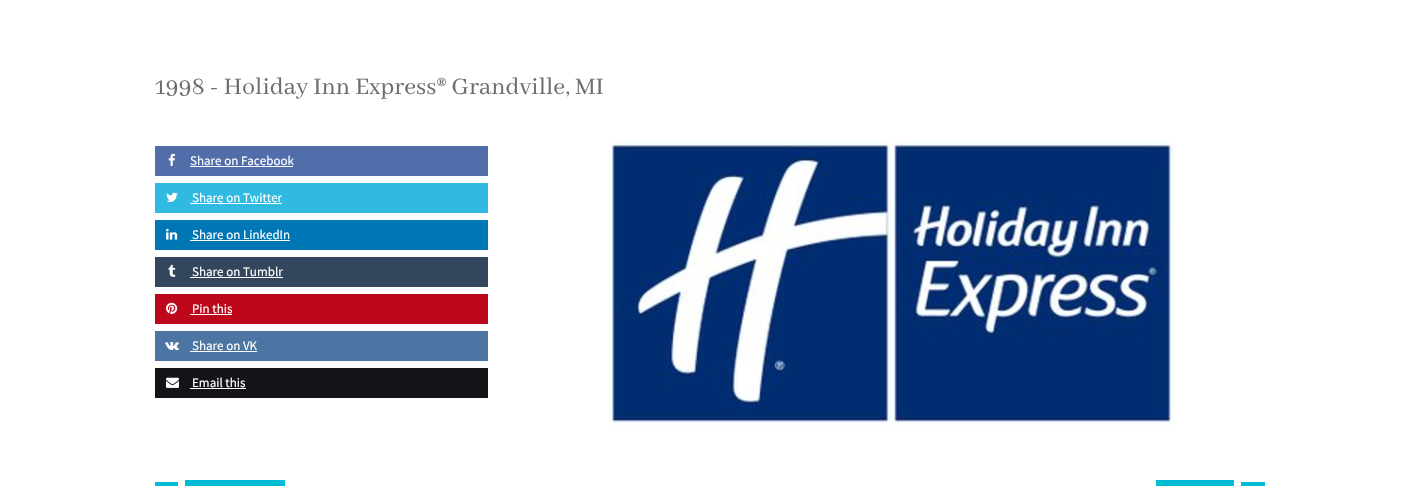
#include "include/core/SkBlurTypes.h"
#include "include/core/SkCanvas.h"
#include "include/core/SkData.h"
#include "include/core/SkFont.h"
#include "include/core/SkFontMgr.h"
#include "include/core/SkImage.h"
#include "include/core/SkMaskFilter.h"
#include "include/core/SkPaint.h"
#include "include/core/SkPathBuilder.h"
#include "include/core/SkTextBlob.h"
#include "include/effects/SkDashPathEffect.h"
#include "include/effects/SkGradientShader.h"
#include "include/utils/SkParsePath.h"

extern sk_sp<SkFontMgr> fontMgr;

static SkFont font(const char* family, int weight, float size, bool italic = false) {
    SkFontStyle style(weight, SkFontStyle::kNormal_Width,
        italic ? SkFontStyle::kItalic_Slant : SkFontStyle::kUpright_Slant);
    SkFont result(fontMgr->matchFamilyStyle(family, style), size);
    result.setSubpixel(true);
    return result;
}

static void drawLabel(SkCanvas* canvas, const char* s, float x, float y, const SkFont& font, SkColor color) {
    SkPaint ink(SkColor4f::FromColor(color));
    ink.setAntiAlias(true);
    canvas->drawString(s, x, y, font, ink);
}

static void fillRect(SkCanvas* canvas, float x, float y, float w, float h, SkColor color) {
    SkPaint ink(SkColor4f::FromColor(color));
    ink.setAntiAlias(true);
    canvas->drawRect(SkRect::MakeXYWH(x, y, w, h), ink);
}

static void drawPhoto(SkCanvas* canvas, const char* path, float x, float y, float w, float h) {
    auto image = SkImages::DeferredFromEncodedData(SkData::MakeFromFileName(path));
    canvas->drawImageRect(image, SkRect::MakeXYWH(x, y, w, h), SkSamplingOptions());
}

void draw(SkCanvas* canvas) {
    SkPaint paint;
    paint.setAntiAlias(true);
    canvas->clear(0xFFFFFFFF);
    SkFont font1 = font("Abhaya Libre", 400, 26);
    drawLabel(canvas, "1998 - Holiday Inn Express® Grandville, MI", 155, 94, font1, 0xFF6D6E70);
    fillRect(canvas, 155, 146, 333, 30, 0xFF516EAB);
    drawPhoto(canvas, "assets/img1.png", 168, 153, 7, 13);
    SkFont font2 = font("Source Sans Pro", 400, 13);
    drawLabel(canvas, "Share on Facebook", 190, 165, font2, 0xFFFFFFFF);
    fillRect(canvas, 190, 166, 103, 1, 0xFFFFFFFF);
    fillRect(canvas, 155, 183, 333, 30, 0xFF31BAE1);
    drawPhoto(canvas, "assets/img2.png", 166, 192, 12, 10);
    drawLabel(canvas, "Share on Twitter", 192, 202, font2, 0xFFFFFFFF);
    fillRect(canvas, 190, 203, 92, 1, 0xFFFFFFFF);
    fillRect(canvas, 155, 220, 333, 30, 0xFF0077B5);
    drawPhoto(canvas, "assets/img3.png", 166, 228, 12, 12);
    drawLabel(canvas, "Share on LinkedIn", 192, 239, font2, 0xFFFFFFFF);
    fillRect(canvas, 190, 240, 100, 1, 0xFFFFFFFF);
    fillRect(canvas, 155, 257, 333, 30, 0xFF34465D);
    drawPhoto(canvas, "assets/img4.png", 168, 264, 8, 13);
    drawLabel(canvas, "Share on Tumblr", 192, 276, font2, 0xFFFFFFFF);
    fillRect(canvas, 190, 277, 93, 1, 0xFFFFFFFF);
    fillRect(canvas, 155, 294, 333, 30, 0xFFBD081C);
    drawPhoto(canvas, "assets/img5.png", 166, 302, 12, 12);
    drawLabel(canvas, "Pin this", 192, 313, font2, 0xFFFFFFFF);
    fillRect(canvas, 190, 314, 42, 1, 0xFFFFFFFF);
    fillRect(canvas, 155, 331, 333, 30, 0xFF4C75A3);
    drawPhoto(canvas, "assets/img6.png", 165, 342, 14, 8);
    drawLabel(canvas, "Share on VK", 192, 350, font2, 0xFFFFFFFF);
    fillRect(canvas, 190, 351, 67, 1, 0xFFFFFFFF);
    fillRect(canvas, 155, 368, 333, 30, 0xFF131418);
    drawPhoto(canvas, "assets/img7.png", 166, 377, 13, 11);
    drawLabel(canvas, "Email this", 192, 387, font2, 0xFFFFFFFF);
    fillRect(canvas, 190, 388, 56, 1, 0xFFFFFFFF);
    drawPhoto(canvas, "assets/img8.png", 609, 141, 565, 285);
    fillRect(canvas, 155, 482, 23, 4, 0xFF00BCD4);
    fillRect(canvas, 185, 480, 100, 6, 0xFF00BCD4);
    fillRect(canvas, 1156, 480, 78, 6, 0xFF00BCD4);
    fillRect(canvas, 1241, 482, 24, 4, 0xFF00BCD4);
}
